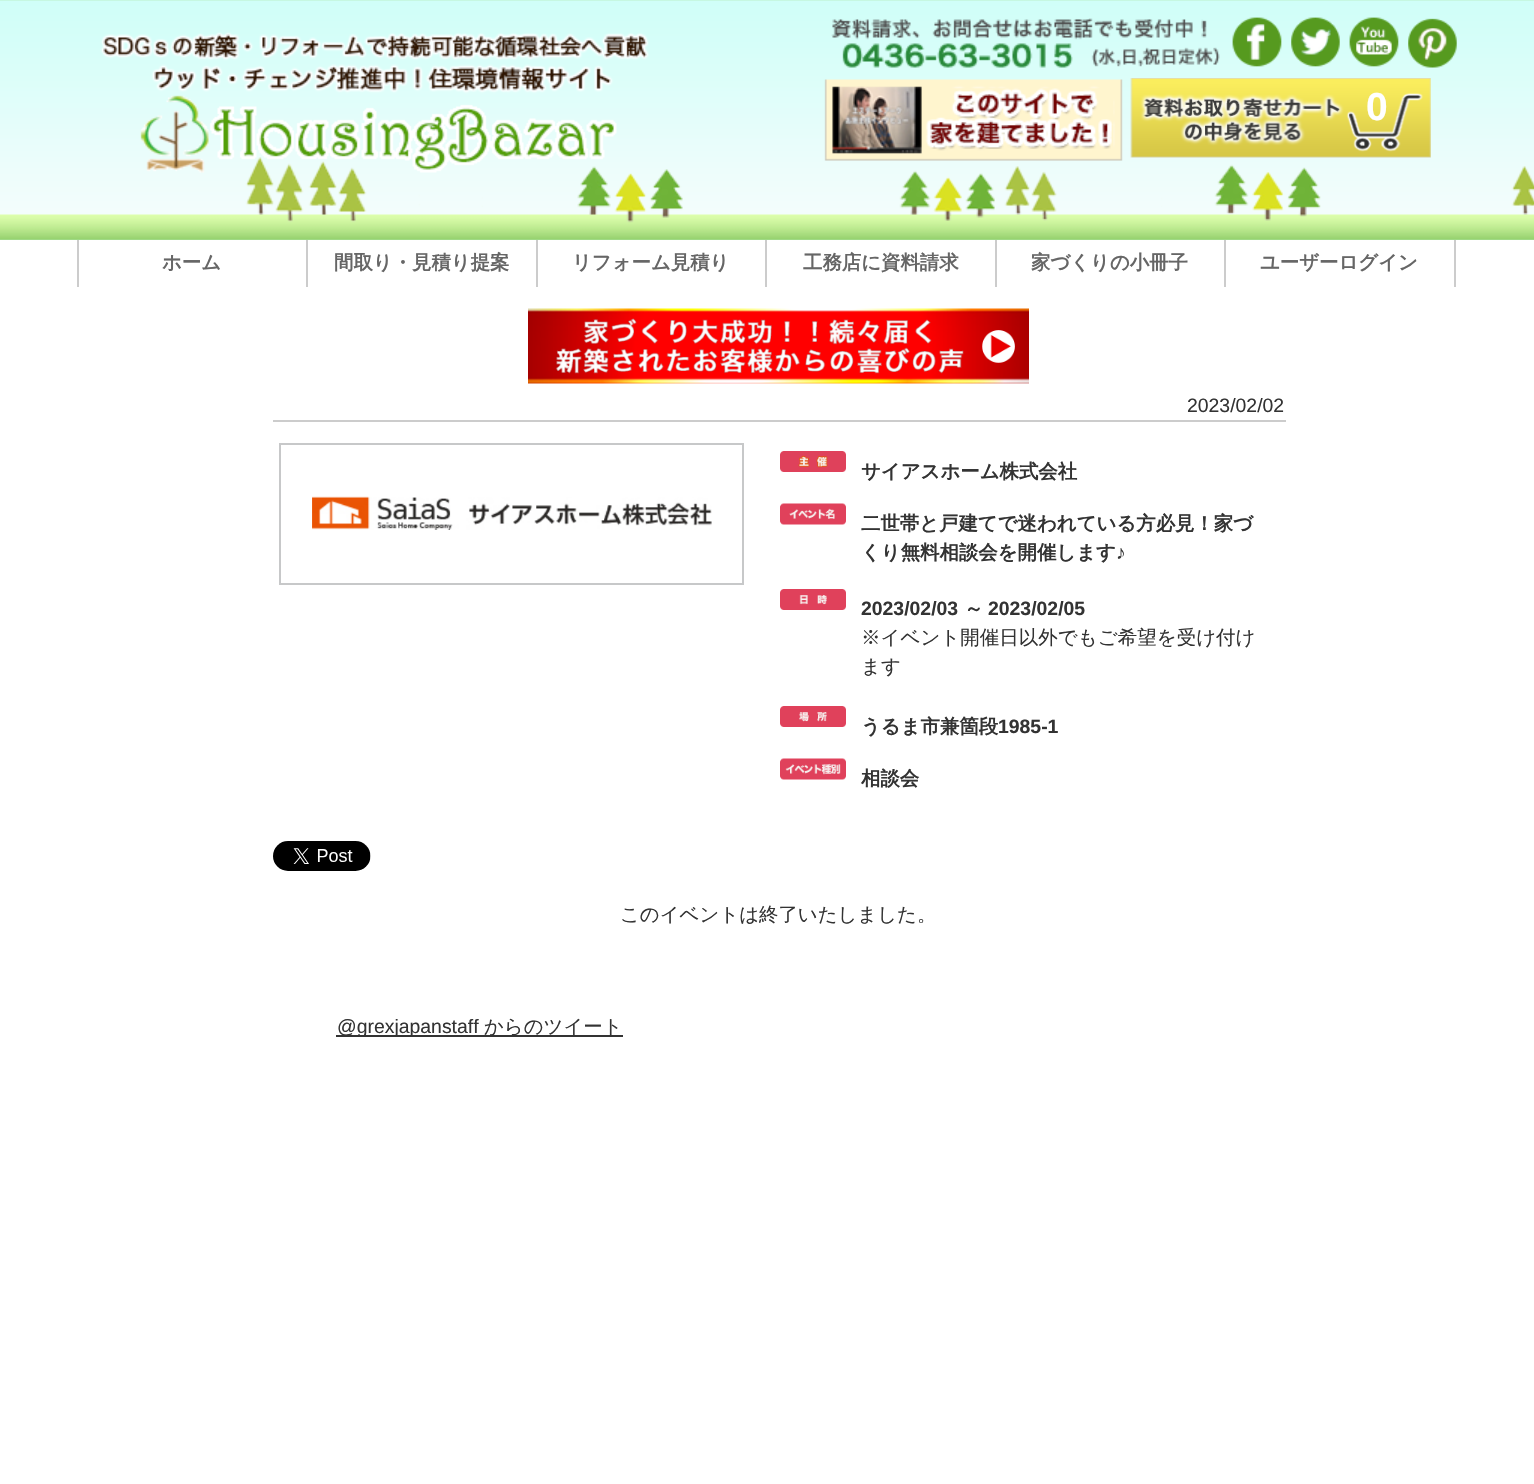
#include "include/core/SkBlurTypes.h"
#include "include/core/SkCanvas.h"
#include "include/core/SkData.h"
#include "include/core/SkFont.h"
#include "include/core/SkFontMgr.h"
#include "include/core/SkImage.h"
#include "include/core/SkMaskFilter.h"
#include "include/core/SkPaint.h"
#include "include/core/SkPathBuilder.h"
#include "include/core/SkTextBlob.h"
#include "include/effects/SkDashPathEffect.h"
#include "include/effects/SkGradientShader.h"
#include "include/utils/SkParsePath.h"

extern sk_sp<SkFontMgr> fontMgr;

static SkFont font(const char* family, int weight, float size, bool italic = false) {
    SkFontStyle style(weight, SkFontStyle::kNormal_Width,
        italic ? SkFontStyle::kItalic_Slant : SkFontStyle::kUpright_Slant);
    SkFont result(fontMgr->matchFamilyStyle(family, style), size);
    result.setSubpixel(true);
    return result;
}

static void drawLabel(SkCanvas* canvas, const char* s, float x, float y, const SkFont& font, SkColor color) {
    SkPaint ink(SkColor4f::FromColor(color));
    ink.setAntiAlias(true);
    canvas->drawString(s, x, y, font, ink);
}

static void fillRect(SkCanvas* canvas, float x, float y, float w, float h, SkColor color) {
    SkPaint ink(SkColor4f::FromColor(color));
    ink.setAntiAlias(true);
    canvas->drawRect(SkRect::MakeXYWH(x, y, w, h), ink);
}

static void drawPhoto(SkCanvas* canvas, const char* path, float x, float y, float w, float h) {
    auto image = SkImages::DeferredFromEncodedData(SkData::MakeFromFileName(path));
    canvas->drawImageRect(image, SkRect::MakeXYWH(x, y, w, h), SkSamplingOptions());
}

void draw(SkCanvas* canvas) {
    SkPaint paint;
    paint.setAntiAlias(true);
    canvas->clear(0xFFFFFFFF);
    drawPhoto(canvas, "assets/img1.png", 0, 0, 1534, 240);
    drawPhoto(canvas, "assets/img2.png", 100, 32, 549, 141);
    drawPhoto(canvas, "assets/img3.png", 831, 18, 389, 50);
    drawPhoto(canvas, "assets/img4.png", 1232, 17, 50, 50);
    drawPhoto(canvas, "assets/img5.png", 1291, 17, 49, 50);
    drawPhoto(canvas, "assets/img6.png", 1349, 17, 50, 50);
    drawPhoto(canvas, "assets/img7.png", 1408, 18, 49, 50);
    drawPhoto(canvas, "assets/img8.png", 824, 79, 299, 82);
    drawPhoto(canvas, "assets/img9.png", 1130, 78, 301, 80);
    SkFont font1 = font("Liberation Sans", 700, 39);
    drawLabel(canvas, "0", 1366, 120, font1, 0xFFFFFFFF);
    fillRect(canvas, 77, 240, 2, 47, 0xFFCCCCCC);
    SkFont font2 = font("WenQuanYi Zen Hei", 700, 19.4f);
    drawLabel(canvas, "ホーム", 162, 269, font2, 0xFF666666);
    fillRect(canvas, 306, 240, 2, 47, 0xFFCCCCCC);
    drawLabel(canvas, "間取り・見積り提案", 334, 269, font2, 0xFF666666);
    fillRect(canvas, 536, 240, 2, 47, 0xFFCCCCCC);
    drawLabel(canvas, "リフォーム見積り", 572, 269, font2, 0xFF666666);
    fillRect(canvas, 765, 240, 2, 47, 0xFFCCCCCC);
    drawLabel(canvas, "工務店に資料請求", 803, 269, font2, 0xFF666666);
    fillRect(canvas, 995, 240, 2, 47, 0xFFCCCCCC);
    drawLabel(canvas, "家づくりの小冊子", 1031, 269, font2, 0xFF666666);
    fillRect(canvas, 1454, 240, 2, 47, 0xFFCCCCCC);
    fillRect(canvas, 1224, 240, 2, 47, 0xFFCCCCCC);
    drawLabel(canvas, "ユーザーログイン", 1260, 269, font2, 0xFF666666);
    drawPhoto(canvas, "assets/img10.png", 528, 308, 501, 76);
    fillRect(canvas, 273, 420, 1013, 2, 0xFFCCCCCC);
    SkFont font3 = font("Liberation Sans", 400, 19.4f);
    drawLabel(canvas, "2023/02/02", 1187, 412, font3, 0xFF333333);
    paint.setStroke(true);
    paint.setStrokeWidth(2);
    paint.setColor(0xFFC7C8C9);
    canvas->drawRect(SkRect::MakeXYWH(280, 444, 463, 140), paint);
    drawPhoto(canvas, "assets/img11.png", 312, 496, 400, 34);
    drawPhoto(canvas, "assets/img12.png", 780, 451, 66, 21);
    drawLabel(canvas, "サイアスホーム株式会社", 861, 478, font2, 0xFF333333);
    drawPhoto(canvas, "assets/img13.png", 780, 503, 66, 22);
    drawLabel(canvas, "二世帯と戸建てで迷われている方必見！家づ", 861, 530, font2, 0xFF333333);
    drawLabel(canvas, "くり無料相談会を開催します", 861, 559, font2, 0xFF333333);
    SkFont font4 = font("Liberation Sans", 700, 19.4f);
    drawLabel(canvas, "♪", 1116, 559, font4, 0xFF333333);
    drawPhoto(canvas, "assets/img14.png", 780, 589, 66, 21);
    drawLabel(canvas, "2023/02/03", 861, 615, font4, 0xFF333333);
    drawLabel(canvas, "～", 964, 615, font2, 0xFF333333);
    drawLabel(canvas, "2023/02/05", 988, 615, font4, 0xFF333333);
    SkFont font5 = font("WenQuanYi Zen Hei", 500, 19.5f);
    drawLabel(canvas, "※イベント開催日以外でもご希望を受け付け", 861, 644, font5, 0xFF333333);
    drawLabel(canvas, "ます", 861, 673, font5, 0xFF333333);
    drawPhoto(canvas, "assets/img15.png", 780, 706, 66, 21);
    drawLabel(canvas, "うるま市兼箇段", 861, 733, font2, 0xFF333333);
    drawLabel(canvas, "1985-1", 998, 733, font4, 0xFF333333);
    drawPhoto(canvas, "assets/img16.png", 780, 758, 66, 22);
    drawLabel(canvas, "相談会", 861, 785, font2, 0xFF333333);
    drawPhoto(canvas, "assets/img17.png", 273, 841, 98, 30);
    SkFont font6 = font("WenQuanYi Zen Hei", 500, 19.4f);
    drawLabel(canvas, "このイベントは終了いたしました。", 620, 921, font6, 0xFF333333);
    fillRect(canvas, 336, 1035, 287, 2, 0xFF333333);
    drawLabel(canvas, "@grexjapanstaff", 337, 1033, font3, 0xFF333333);
    drawLabel(canvas, "からのツイート", 484, 1033, font6, 0xFF333333);
}
